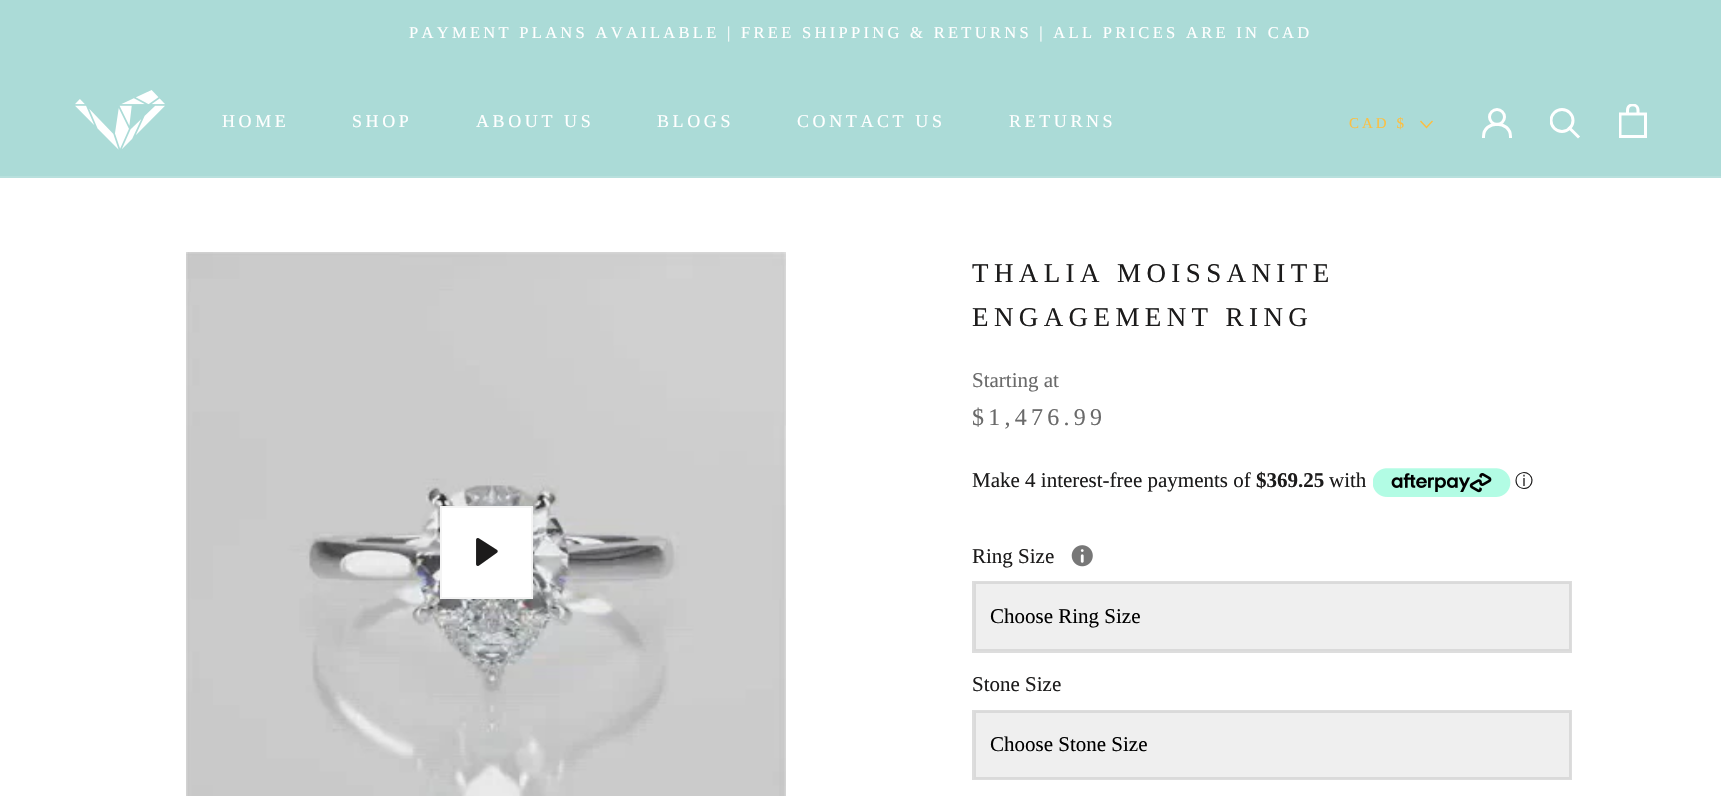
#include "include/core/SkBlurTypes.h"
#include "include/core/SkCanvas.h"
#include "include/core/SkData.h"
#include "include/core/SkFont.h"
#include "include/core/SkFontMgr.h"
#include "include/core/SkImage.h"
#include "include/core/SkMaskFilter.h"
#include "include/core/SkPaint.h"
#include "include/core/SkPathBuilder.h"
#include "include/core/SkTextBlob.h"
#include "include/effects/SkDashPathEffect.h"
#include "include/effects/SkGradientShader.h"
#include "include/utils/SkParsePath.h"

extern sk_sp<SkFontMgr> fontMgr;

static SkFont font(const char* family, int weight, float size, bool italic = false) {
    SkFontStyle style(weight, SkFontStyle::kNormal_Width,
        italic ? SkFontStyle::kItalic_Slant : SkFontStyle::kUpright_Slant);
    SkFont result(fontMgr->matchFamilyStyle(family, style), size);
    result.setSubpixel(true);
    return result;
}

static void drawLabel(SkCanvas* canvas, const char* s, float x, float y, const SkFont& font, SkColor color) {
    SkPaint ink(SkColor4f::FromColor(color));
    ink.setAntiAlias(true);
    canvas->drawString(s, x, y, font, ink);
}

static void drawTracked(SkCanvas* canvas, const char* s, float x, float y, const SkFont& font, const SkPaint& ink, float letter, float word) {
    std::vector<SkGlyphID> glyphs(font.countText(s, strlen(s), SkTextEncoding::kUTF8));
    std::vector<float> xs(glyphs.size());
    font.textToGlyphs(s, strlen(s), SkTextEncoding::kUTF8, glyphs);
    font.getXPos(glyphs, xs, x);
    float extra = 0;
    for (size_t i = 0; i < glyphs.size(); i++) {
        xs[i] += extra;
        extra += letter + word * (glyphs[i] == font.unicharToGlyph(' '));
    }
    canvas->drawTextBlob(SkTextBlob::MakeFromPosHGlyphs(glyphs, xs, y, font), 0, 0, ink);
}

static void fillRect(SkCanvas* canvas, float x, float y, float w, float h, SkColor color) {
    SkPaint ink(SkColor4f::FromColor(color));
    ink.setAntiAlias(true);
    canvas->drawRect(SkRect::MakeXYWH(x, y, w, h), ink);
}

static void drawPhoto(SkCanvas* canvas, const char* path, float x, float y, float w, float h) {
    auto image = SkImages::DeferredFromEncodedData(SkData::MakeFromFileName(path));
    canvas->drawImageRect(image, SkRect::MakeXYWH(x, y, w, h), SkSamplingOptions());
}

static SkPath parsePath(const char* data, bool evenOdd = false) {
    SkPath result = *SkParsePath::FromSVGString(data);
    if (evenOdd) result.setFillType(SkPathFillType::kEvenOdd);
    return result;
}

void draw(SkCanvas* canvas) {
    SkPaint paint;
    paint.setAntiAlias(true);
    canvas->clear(0xFFFFFFFF);
    fillRect(canvas, 0, 0, 1721, 176, 0xFFABDBD7);
    SkFont font1 = font("Liberation Serif", 400, 16.5f);
    paint.setColor(0xFFFFFFFF);
    drawTracked(canvas, "PAYMENT PLANS AVAILABLE | FREE SHIPPING & RETURNS | ALL PRICES ARE IN CAD", 409, 38, font1, paint, 3.3f, 0);
    fillRect(canvas, 0, 176, 1721, 2, 0xFFB8E0DD);
    drawPhoto(canvas, "assets/img1.png", 75, 90, 90, 60);
    SkFont font2 = font("Liberation Serif", 400, 18);
    drawTracked(canvas, "HOME", 222, 127, font2, paint, 3.6f, 0);
    drawTracked(canvas, "SHOP", 352, 127, font2, paint, 3.6f, 0);
    drawTracked(canvas, "ABOUT US", 476, 127, font2, paint, 3.6f, 0);
    drawTracked(canvas, "BLOGS", 657, 127, font2, paint, 3.6f, 0);
    drawTracked(canvas, "CONTACT US", 797, 127, font2, paint, 3.6f, 0);
    drawTracked(canvas, "RETURNS", 1009, 127, font2, paint, 3.6f, 0);
    SkFont font3 = font("Liberation Serif", 400, 15);
    paint.setColor(0xFFFCBF42);
    drawTracked(canvas, "CAD $", 1349, 128, font3, paint, 3, 0);
    paint.setStroke(true);
    paint.setStrokeWidth(1.5f);
    paint.setStrokeCap(SkPaint::kSquare_Cap);
    canvas->drawPath(parsePath("M1432 121.5L1426.5 127.5L1421 121.5"), paint);
    paint.setStrokeWidth(3);
    paint.setColor(0xFFFFFFFF);
    canvas->drawPath(parsePath("M1483.5 136.5C1483.5 120 1510.5 120 1510.5 136.5"), paint);
    paint.setStrokeCap(SkPaint::kButt_Cap);
    canvas->drawCircle(1497, 117, 7.5f, paint);
    paint.setStrokeCap(SkPaint::kSquare_Cap);
    canvas->drawPath(parsePath("M1578 136.5L1569.5 128"), paint);
    canvas->save();
    canvas->clipRect(SkRect::MakeXYWH(1550, 108, 31, 32));
    paint.setStrokeCap(SkPaint::kButt_Cap);
    canvas->drawCircle(1562, 120.5f, 11, paint);
    canvas->restore();
    drawPhoto(canvas, "assets/img2.png", 1619, 104, 28, 34);
    drawPhoto(canvas, "assets/img3.png", 186, 252, 600, 544);
    paint.setStroke(false);
    canvas->drawRect(SkRect::MakeXYWH(441, 507, 91, 91), paint);
    paint.setStroke(true);
    paint.setStrokeWidth(2);
    paint.setColor(0xFFF4F4F4);
    canvas->drawRect(SkRect::MakeXYWH(441, 507, 91, 91), paint);
    drawPhoto(canvas, "assets/img4.png", 476, 538, 22, 28);
    SkFont font4 = font("Liberation Serif", 400, 27);
    paint.setStroke(false);
    paint.setColor(0xFF1C1B1B);
    drawTracked(canvas, "THALIA MOISSANITE", 972, 282, font4, paint, 5.4f, 0);
    drawTracked(canvas, "ENGAGEMENT RING", 972, 326, font4, paint, 5.4f, 0);
    SkFont font5 = font("Liberation Serif", 400, 21);
    drawLabel(canvas, "Starting at", 972, 387, font5, 0xFF6A6A6A);
    SkFont font6 = font("Liberation Serif", 400, 24);
    paint.setColor(0xFF6A6A6A);
    drawTracked(canvas, "$1,476.99", 972, 425, font6, paint, 4.25f, 0);
    drawLabel(canvas, "Make 4 interest-free payments of", 972, 487, font5, 0xFF1C1B1B);
    SkFont font7 = font("Liberation Serif", 700, 21);
    drawLabel(canvas, "$369.25", 1256, 487, font7, 0xFF1C1B1B);
    drawLabel(canvas, "with", 1329, 487, font5, 0xFF1C1B1B);
    drawPhoto(canvas, "assets/img5.png", 1373, 468, 138, 29);
    SkFont font8 = font("WenQuanYi Zen Hei", 500, 18);
    drawLabel(canvas, "ⓘ", 1515, 487, font8, 0xFF1C1B1B);
    drawLabel(canvas, "Ring Size", 972, 563, font5, 0xFF1C1B1B);
    drawPhoto(canvas, "assets/img6.png", 1071, 545, 22, 22);
    paint.setStroke(true);
    paint.setColor(0xFFDDDDDD);
    canvas->drawRect(SkRect::MakeXYWH(973, 582, 598, 70), paint);
    paint.setStroke(false);
    paint.setColor(0xFFEFEFEF);
    canvas->drawRect(SkRect::MakeXYWH(975, 583, 595, 67), paint);
    paint.setStroke(true);
    paint.setColor(0xFFDADADA);
    canvas->drawRect(SkRect::MakeXYWH(975, 583, 595, 67), paint);
    drawLabel(canvas, "Choose Ring Size", 990, 623, font5, 0xFF000000);
    drawLabel(canvas, "Stone Size", 972, 691, font5, 0xFF1C1B1B);
    paint.setColor(0xFFDDDDDD);
    canvas->drawRect(SkRect::MakeXYWH(973, 711, 598, 68), paint);
    paint.setStroke(false);
    paint.setColor(0xFFEFEFEF);
    canvas->drawRect(SkRect::MakeXYWH(975, 712, 595, 66), paint);
    paint.setStroke(true);
    paint.setColor(0xFFDADADA);
    canvas->drawRect(SkRect::MakeXYWH(975, 712, 595, 66), paint);
    drawLabel(canvas, "Choose Stone Size", 990, 751, font5, 0xFF000000);
}
